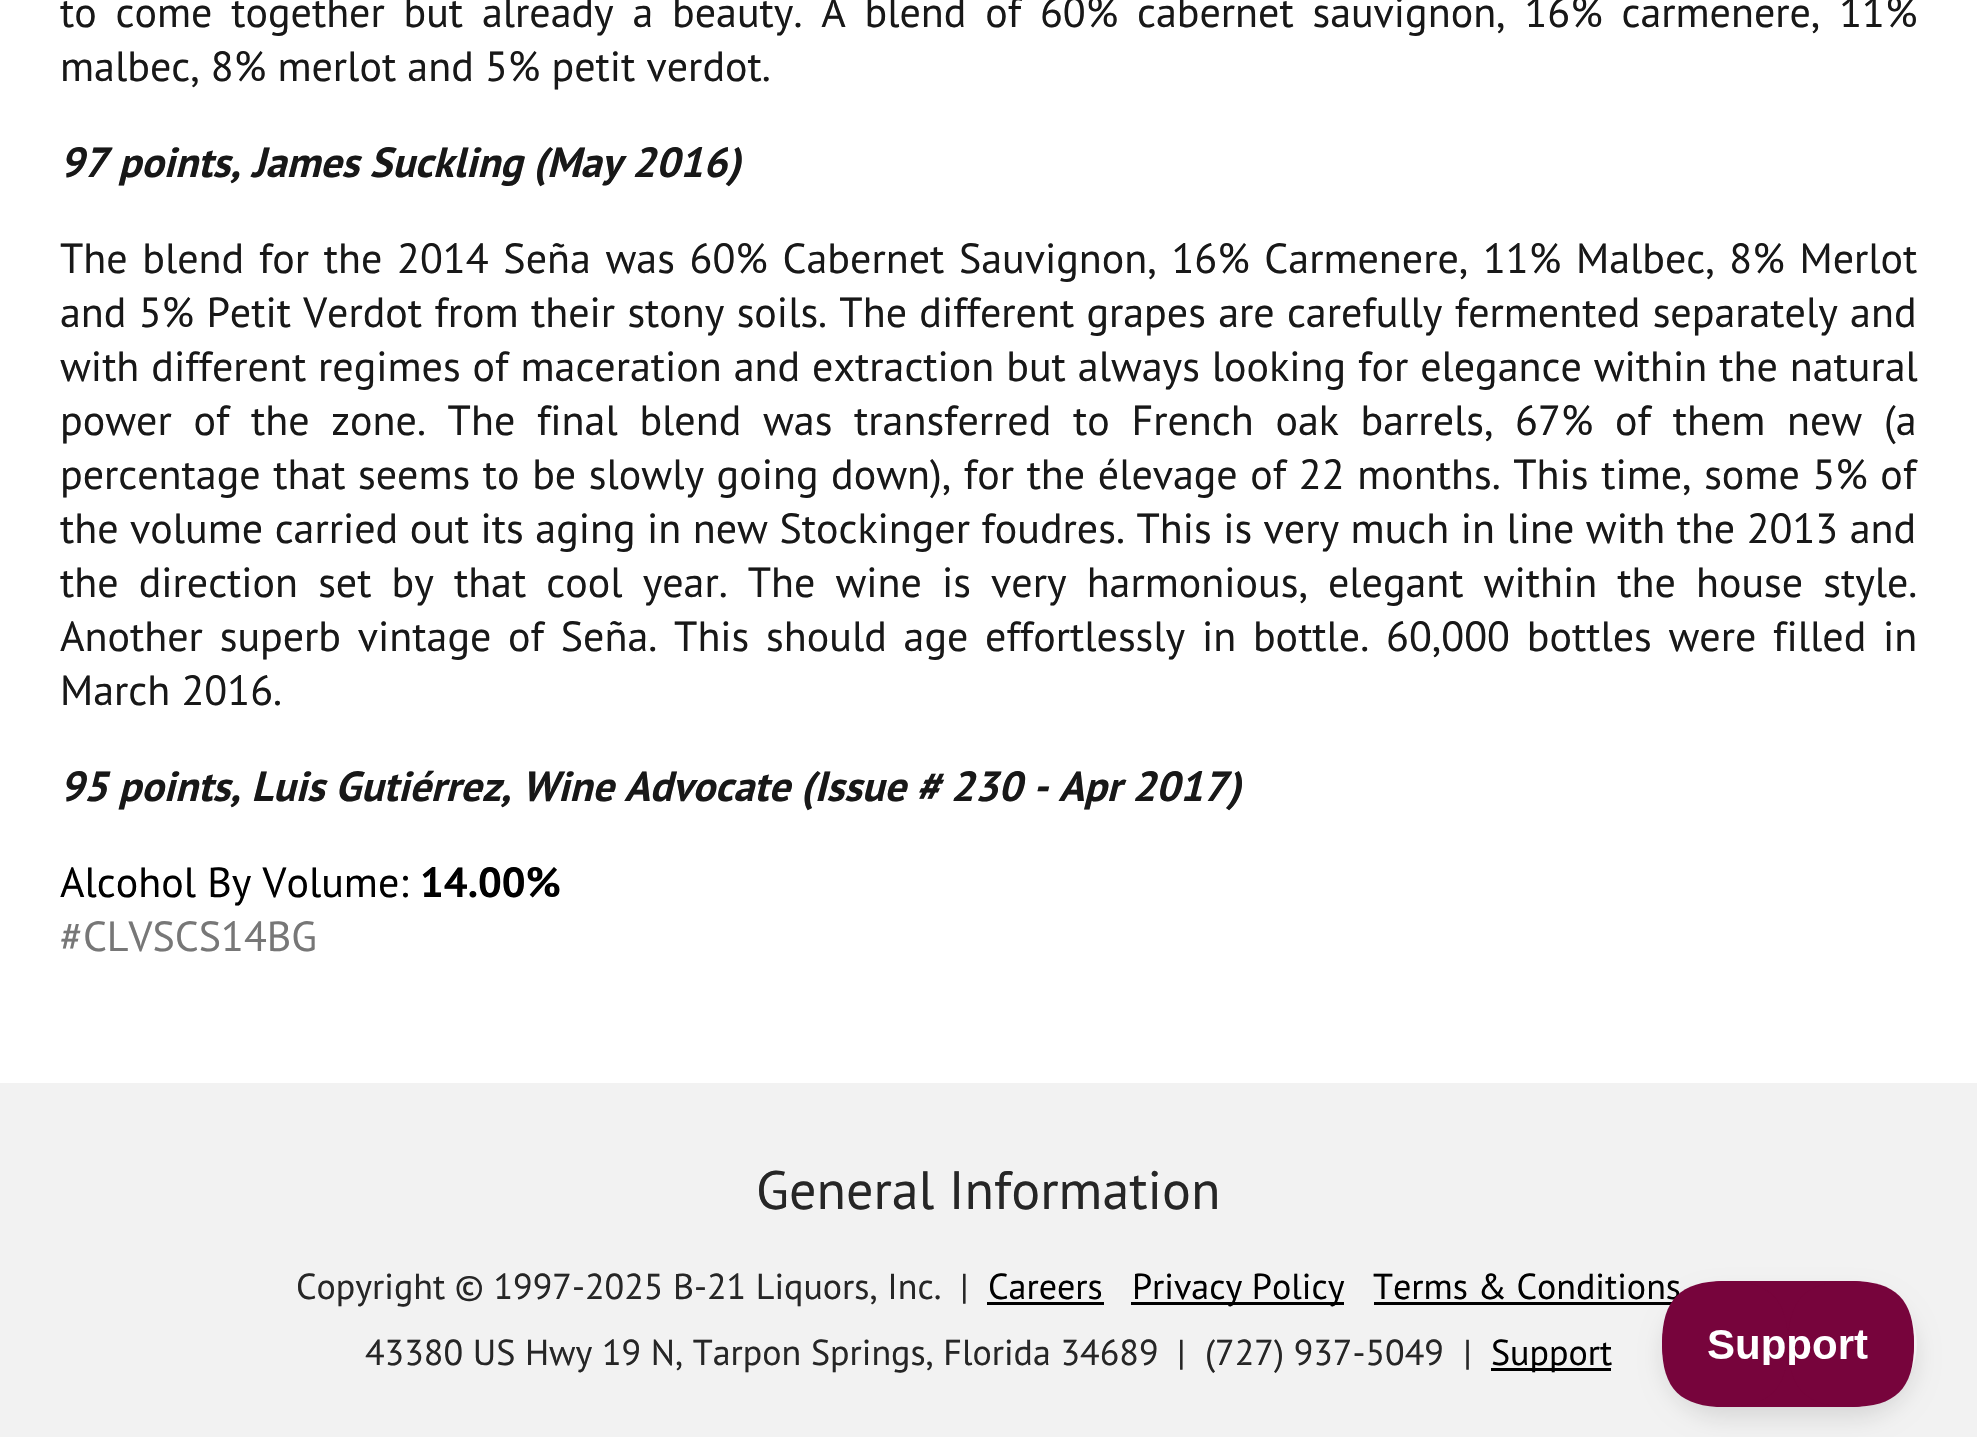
#include "include/core/SkBlurTypes.h"
#include "include/core/SkCanvas.h"
#include "include/core/SkData.h"
#include "include/core/SkFont.h"
#include "include/core/SkFontMgr.h"
#include "include/core/SkImage.h"
#include "include/core/SkMaskFilter.h"
#include "include/core/SkPaint.h"
#include "include/core/SkPathBuilder.h"
#include "include/core/SkTextBlob.h"
#include "include/effects/SkDashPathEffect.h"
#include "include/effects/SkGradientShader.h"
#include "include/utils/SkParsePath.h"

extern sk_sp<SkFontMgr> fontMgr;

static SkFont font(const char* family, int weight, float size, bool italic = false) {
    SkFontStyle style(weight, SkFontStyle::kNormal_Width,
        italic ? SkFontStyle::kItalic_Slant : SkFontStyle::kUpright_Slant);
    SkFont result(fontMgr->matchFamilyStyle(family, style), size);
    result.setSubpixel(true);
    return result;
}

static void drawLabel(SkCanvas* canvas, const char* s, float x, float y, const SkFont& font, SkColor color) {
    SkPaint ink(SkColor4f::FromColor(color));
    ink.setAntiAlias(true);
    canvas->drawString(s, x, y, font, ink);
}

static void drawTracked(SkCanvas* canvas, const char* s, float x, float y, const SkFont& font, const SkPaint& ink, float letter, float word) {
    std::vector<SkGlyphID> glyphs(font.countText(s, strlen(s), SkTextEncoding::kUTF8));
    std::vector<float> xs(glyphs.size());
    font.textToGlyphs(s, strlen(s), SkTextEncoding::kUTF8, glyphs);
    font.getXPos(glyphs, xs, x);
    float extra = 0;
    for (size_t i = 0; i < glyphs.size(); i++) {
        xs[i] += extra;
        extra += letter + word * (glyphs[i] == font.unicharToGlyph(' '));
    }
    canvas->drawTextBlob(SkTextBlob::MakeFromPosHGlyphs(glyphs, xs, y, font), 0, 0, ink);
}

static void fillRect(SkCanvas* canvas, float x, float y, float w, float h, SkColor color) {
    SkPaint ink(SkColor4f::FromColor(color));
    ink.setAntiAlias(true);
    canvas->drawRect(SkRect::MakeXYWH(x, y, w, h), ink);
}

static void drawPhoto(SkCanvas* canvas, const char* path, float x, float y, float w, float h) {
    auto image = SkImages::DeferredFromEncodedData(SkData::MakeFromFileName(path));
    canvas->drawImageRect(image, SkRect::MakeXYWH(x, y, w, h), SkSamplingOptions());
}

static SkPath parsePath(const char* data, bool evenOdd = false) {
    SkPath result = *SkParsePath::FromSVGString(data);
    if (evenOdd) result.setFillType(SkPathFillType::kEvenOdd);
    return result;
}

void draw(SkCanvas* canvas) {
    SkPaint paint;
    paint.setAntiAlias(true);
    canvas->clear(0xFFFFFFFF);
    SkFont font1 = font("PT Sans", 400, 42);
    paint.setColor(0xFF181818);
    drawTracked(canvas, "to come together but already a beauty. A blend of 60% cabernet sauvignon, 16% carmenere, 11%", 60, 27, font1, paint, 0, 7.6f);
    drawLabel(canvas, "malbec, 8% merlot and 5% petit verdot.", 60, 81, font1, 0xFF181818);
    SkFont font2 = font("PT Sans", 700, 42, true);
    drawLabel(canvas, "97 points, James Suckling (May 2016)", 60, 177, font2, 0xFF181818);
    drawTracked(canvas, "The blend for the 2014 Seña was 60% Cabernet Sauvignon, 16% Carmenere, 11% Malbec, 8% Merlot", 60, 273, font1, paint, 0, 3.5f);
    drawTracked(canvas, "and 5% Petit Verdot from their stony soils. The different grapes are carefully fermented separately and", 60, 327, font1, paint, 0, 1.1f);
    drawTracked(canvas, "with different regimes of maceration and extraction but always looking for elegance within the natural", 60, 381, font1, paint, 0, 0.75f);
    drawTracked(canvas, "power of the zone. The final blend was transferred to French oak barrels, 67% of them new (a", 60, 435, font1, paint, 0, 10.5f);
    drawTracked(canvas, "percentage that seems to be slowly going down), for the élevage of 22 months. This time, some 5% of", 60, 489, font1, paint, 0, 1.4f);
    drawTracked(canvas, "the volume carried out its aging in new Stockinger foudres. This is very much in line with the 2013 and", 60, 543, font1, paint, 0, 0.3f);
    drawTracked(canvas, "the direction set by that cool year. The wine is very harmonious, elegant within the house style.", 60, 597, font1, paint, 0, 8.9f);
    drawTracked(canvas, "Another superb vintage of Seña. This should age effortlessly in bottle. 60,000 bottles were filled in", 60, 651, font1, paint, 0, 5.6f);
    drawLabel(canvas, "March 2016.", 60, 705, font1, 0xFF181818);
    drawLabel(canvas, "95 points, Luis Gutiérrez, Wine Advocate (Issue # 230 - Apr 2017)", 60, 801, font2, 0xFF181818);
    drawLabel(canvas, "Alcohol By Volume:", 60, 897, font1, 0xFF000000);
    SkFont font3 = font("PT Sans", 700, 42);
    drawLabel(canvas, "14.00%", 420, 897, font3, 0xFF000000);
    drawLabel(canvas, "#CLVSCS14BG", 60, 951, font1, 0xFF777777);
    fillRect(canvas, 0, 1083, 1977, 354, 0xFFF2F2F2);
    SkFont font4 = font("PT Sans", 400, 54);
    drawLabel(canvas, "General Information", 756, 1209, font4, 0xFF262626);
    SkFont font5 = font("PT Sans", 400, 36);
    drawLabel(canvas, "Copyright © 1997-2025 B-21 Liquors, Inc.", 296, 1299, font5, 0xFF262626);
    drawLabel(canvas, "|", 960, 1299, font5, 0xFF262626);
    drawLabel(canvas, "Careers", 988, 1299, font5, 0xFF000000);
    fillRect(canvas, 987, 1302, 117, 3, 0xFF000000);
    fillRect(canvas, 1131, 1302, 213, 3, 0xFF000000);
    drawLabel(canvas, "Privacy Policy", 1132, 1299, font5, 0xFF000000);
    drawLabel(canvas, "Terms & Conditions", 1373, 1299, font5, 0xFF000000);
    fillRect(canvas, 1374, 1302, 306, 3, 0xFF000000);
    drawLabel(canvas, "43380 US Hwy 19 N, Tarpon Springs, Florida 34689", 365, 1365, font5, 0xFF262626);
    drawLabel(canvas, "|", 1177, 1365, font5, 0xFF262626);
    drawLabel(canvas, "(727) 937-5049  |", 1205, 1365, font5, 0xFF262626);
    fillRect(canvas, 1491, 1368, 120, 3, 0xFF000000);
    drawLabel(canvas, "Support", 1491, 1365, font5, 0xFF000000);
    canvas->save();
    canvas->clipPath(parsePath("M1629 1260H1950V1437H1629ZM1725 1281H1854C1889 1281 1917 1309 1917 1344C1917 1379 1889 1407 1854 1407H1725C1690 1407 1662 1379 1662 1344C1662 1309 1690 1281 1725 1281Z", true), true);
    paint.setColor(0x1A000000);
    paint.setMaskFilter(SkMaskFilter::MakeBlur(kNormal_SkBlurStyle, 10.5f));
    canvas->drawRoundRect(SkRect::MakeXYWH(1662, 1293, 255, 126), 63, 63, paint);
    paint.setMaskFilter(nullptr);
    canvas->restore();
    drawPhoto(canvas, "assets/img1.png", 1662, 1281, 252, 126);
}
